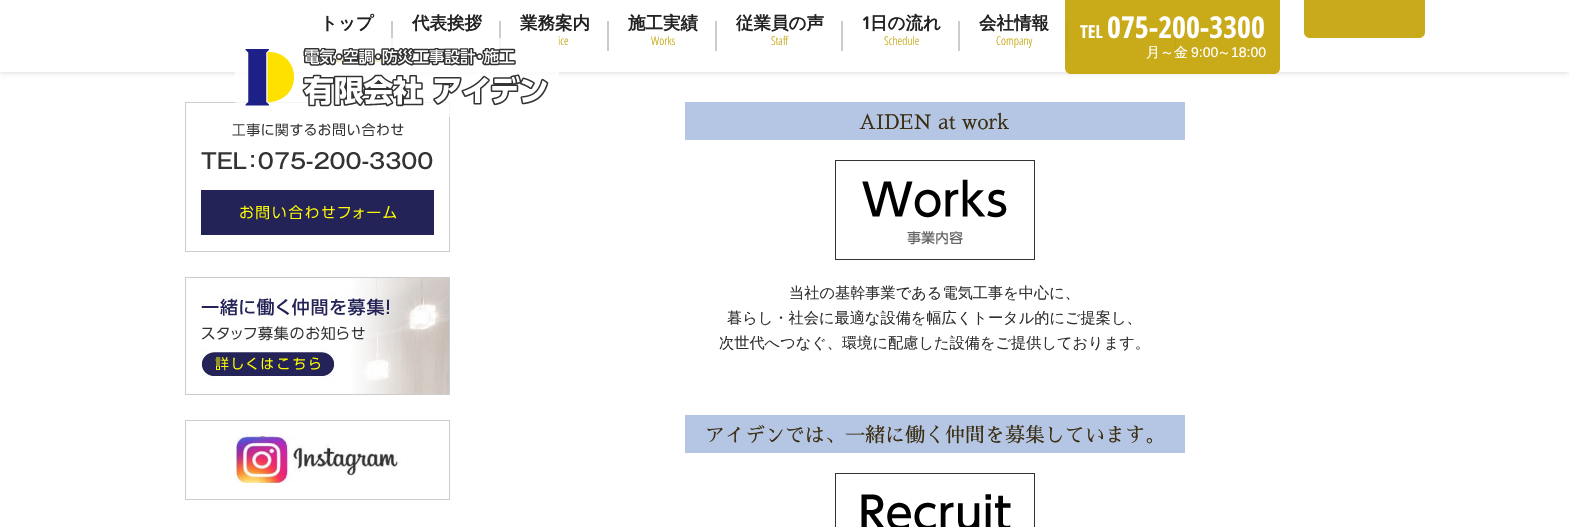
#include "include/core/SkBlurTypes.h"
#include "include/core/SkCanvas.h"
#include "include/core/SkData.h"
#include "include/core/SkFont.h"
#include "include/core/SkFontMgr.h"
#include "include/core/SkImage.h"
#include "include/core/SkMaskFilter.h"
#include "include/core/SkPaint.h"
#include "include/core/SkPathBuilder.h"
#include "include/core/SkTextBlob.h"
#include "include/effects/SkDashPathEffect.h"
#include "include/effects/SkGradientShader.h"
#include "include/utils/SkParsePath.h"

extern sk_sp<SkFontMgr> fontMgr;

static SkFont font(const char* family, int weight, float size, bool italic = false) {
    SkFontStyle style(weight, SkFontStyle::kNormal_Width,
        italic ? SkFontStyle::kItalic_Slant : SkFontStyle::kUpright_Slant);
    SkFont result(fontMgr->matchFamilyStyle(family, style), size);
    result.setSubpixel(true);
    return result;
}

static void drawLabel(SkCanvas* canvas, const char* s, float x, float y, const SkFont& font, SkColor color) {
    SkPaint ink(SkColor4f::FromColor(color));
    ink.setAntiAlias(true);
    canvas->drawString(s, x, y, font, ink);
}

static void fillRect(SkCanvas* canvas, float x, float y, float w, float h, SkColor color) {
    SkPaint ink(SkColor4f::FromColor(color));
    ink.setAntiAlias(true);
    canvas->drawRect(SkRect::MakeXYWH(x, y, w, h), ink);
}

static void drawPhoto(SkCanvas* canvas, const char* path, float x, float y, float w, float h) {
    auto image = SkImages::DeferredFromEncodedData(SkData::MakeFromFileName(path));
    canvas->drawImageRect(image, SkRect::MakeXYWH(x, y, w, h), SkSamplingOptions());
}

static SkPath parsePath(const char* data, bool evenOdd = false) {
    SkPath result = *SkParsePath::FromSVGString(data);
    if (evenOdd) result.setFillType(SkPathFillType::kEvenOdd);
    return result;
}

void draw(SkCanvas* canvas) {
    SkPaint paint;
    paint.setAntiAlias(true);
    canvas->clear(0xFFFFFFFF);
    canvas->save();
    canvas->clipRect(SkRect::MakeXYWH(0, 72, 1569, 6));
    paint.setColor(0xFFDEDEDE);
    paint.setMaskFilter(SkMaskFilter::MakeBlur(kNormal_SkBlurStyle, 2.5f));
    canvas->drawRect(SkRect::MakeXYWH(0, 1, 1569, 72), paint);
    paint.setMaskFilter(nullptr);
    canvas->restore();
    fillRect(canvas, 319, 59, 68, 3, 0xFFC3A100);
    SkFont font1 = font("WenQuanYi Zen Hei", 700, 17.5f);
    drawLabel(canvas, "トップ", 320, 29, font1, 0xFF222222);
    fillRect(canvas, 391, 21, 2, 30, 0xFFCCCCCC);
    drawLabel(canvas, "代表挨拶", 412, 29, font1, 0xFF222222);
    fillRect(canvas, 499, 21, 2, 30, 0xFFCCCCCC);
    drawLabel(canvas, "業務案内", 520, 29, font1, 0xFF222222);
    SkFont font2 = font("Open Sans Condensed", 300, 12);
    drawLabel(canvas, "ice", 558, 45, font2, 0xFFC3A100);
    fillRect(canvas, 607, 21, 2, 30, 0xFFCCCCCC);
    drawLabel(canvas, "施工実績", 628, 29, font1, 0xFF222222);
    drawLabel(canvas, "Works", 651, 45, font2, 0xFFC3A100);
    fillRect(canvas, 715, 21, 2, 30, 0xFFCCCCCC);
    drawLabel(canvas, "従業員の声", 736, 29, font1, 0xFF222222);
    drawLabel(canvas, "Staff", 771, 45, font2, 0xFFC3A100);
    fillRect(canvas, 841, 21, 2, 30, 0xFFCCCCCC);
    SkFont font3 = font("Open Sans Condensed", 700, 17.5f);
    drawLabel(canvas, "1", 862, 29, font3, 0xFF222222);
    drawLabel(canvas, "日の流れ", 870, 29, font1, 0xFF222222);
    drawLabel(canvas, "Schedule", 884, 45, font2, 0xFFC3A100);
    fillRect(canvas, 958, 21, 2, 30, 0xFFCCCCCC);
    drawLabel(canvas, "会社情報", 979, 29, font1, 0xFF222222);
    drawLabel(canvas, "Company", 996, 45, font2, 0xFFC3A100);
    fillRect(canvas, 1066, 21, 2, 30, 0xFFCCCCCC);
    fillRect(canvas, 1174, 21, 2, 30, 0xFFCCCCCC);
    drawPhoto(canvas, "assets/img2.png", 185, 102, 265, 150);
    fillRect(canvas, 235, 38, 324, 79, 0xCCFFFFFF);
    drawPhoto(canvas, "assets/img1.png", 245, 48, 304, 59);
    paint.setColor(0xE6C3A100);
    canvas->drawPath(parsePath("M1065 0H1280V68C1280 71.5 1277.5 74 1274 74H1071C1067.5 74 1065 71.5 1065 68Z"), paint);
    SkFont font4 = font("Open Sans Condensed", 700, 18);
    drawLabel(canvas, "TEL", 1080, 38, font4, 0xFFFFFFFF);
    SkFont font5 = font("Open Sans Condensed", 700, 30);
    drawLabel(canvas, "075-200-3300", 1107, 38, font5, 0xFFFFFFFF);
    SkFont font6 = font("WenQuanYi Zen Hei", 500, 14);
    drawLabel(canvas, "月～金", 1146, 57, font6, 0xFFFFFFFF);
    SkFont font7 = font("Liberation Sans", 400, 14);
    drawLabel(canvas, "9:00", 1191, 57, font7, 0xFFFFFFFF);
    drawLabel(canvas, "～", 1217, 57, font6, 0xFFFFFFFF);
    drawLabel(canvas, "18:00", 1231, 57, font7, 0xFFFFFFFF);
    paint.setColor(0xFFC9AA1A);
    canvas->drawPath(parsePath("M1304 0H1425V32C1425 35.5 1422.5 38 1419 38H1310C1306.5 38 1304 35.5 1304 32Z"), paint);
    drawPhoto(canvas, "assets/img3.png", 185, 277, 265, 118);
    drawPhoto(canvas, "assets/img4.png", 185, 420, 265, 80);
    fillRect(canvas, 685, 102, 500, 38, 0xFFB4C6E4);
    SkFont font8 = font("Sawarabi Mincho", 400, 20);
    drawLabel(canvas, "AIDEN at work", 859, 129, font8, 0xFF3C2F13);
    drawPhoto(canvas, "assets/img5.png", 835, 160, 200, 100);
    SkFont font9 = font("WenQuanYi Zen Hei", 500, 15.2f);
    drawLabel(canvas, "当社の基幹事業である電気工事を中心に、", 789, 298, font9, 0xFF313131);
    drawLabel(canvas, "暮らし・社会に最適な設備を幅広くトータル的にご提案し、", 727, 323, font9, 0xFF313131);
    drawLabel(canvas, "次世代へつなぐ、環境に配慮した設備をご提供しております。", 719, 348, font9, 0xFF313131);
    fillRect(canvas, 685, 415, 500, 38, 0xFFB4C6E4);
    drawLabel(canvas, "アイデンでは、一緒に働く仲間を募集しています。", 705, 442, font8, 0xFF3C2F13);
    drawPhoto(canvas, "assets/img6.png", 835, 473, 200, 54);
}
